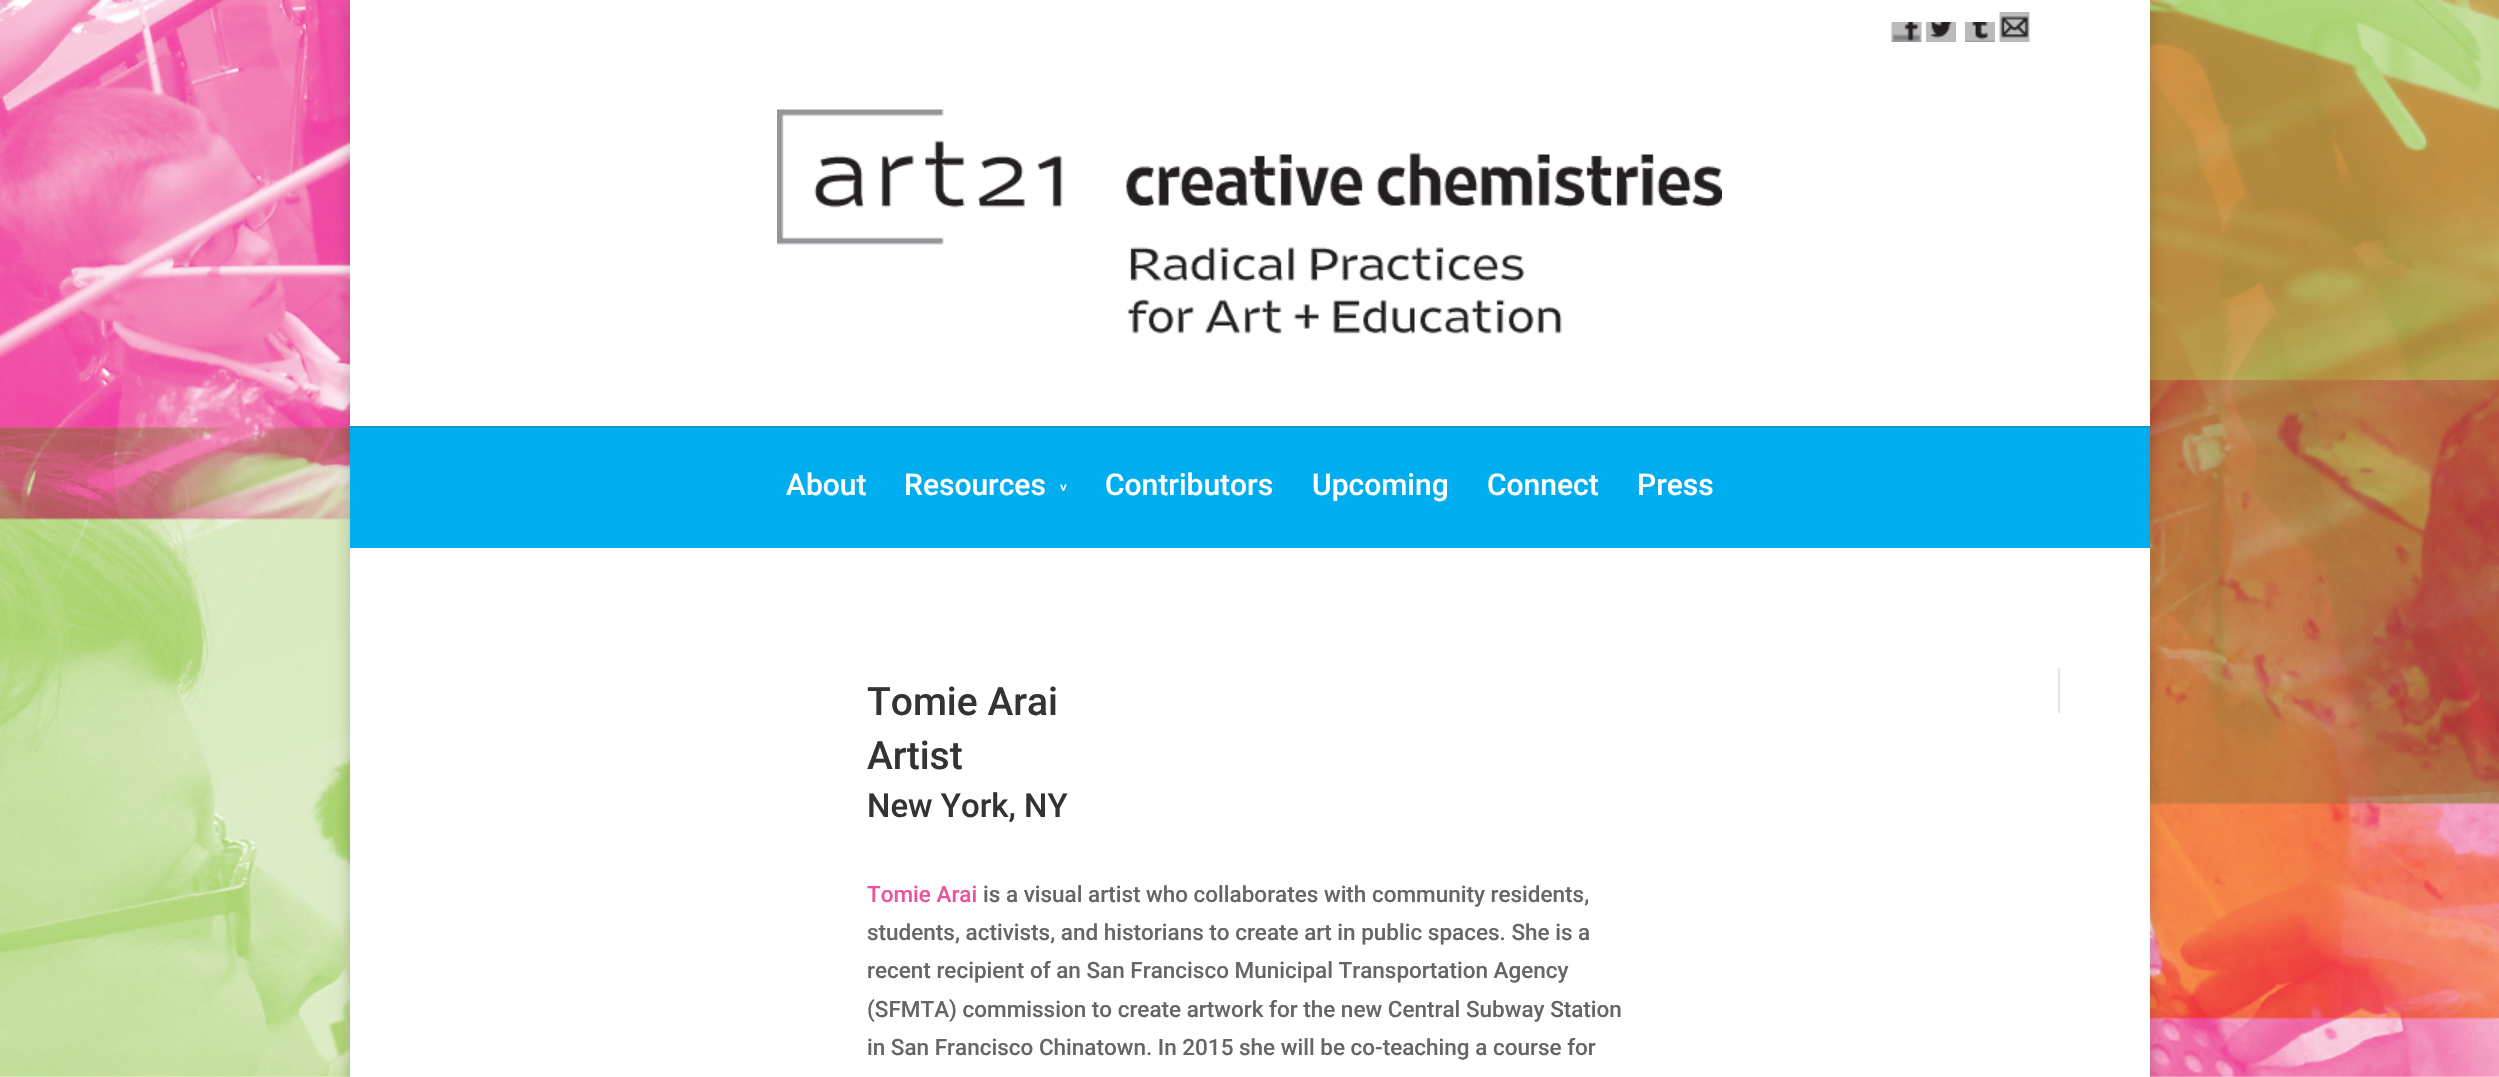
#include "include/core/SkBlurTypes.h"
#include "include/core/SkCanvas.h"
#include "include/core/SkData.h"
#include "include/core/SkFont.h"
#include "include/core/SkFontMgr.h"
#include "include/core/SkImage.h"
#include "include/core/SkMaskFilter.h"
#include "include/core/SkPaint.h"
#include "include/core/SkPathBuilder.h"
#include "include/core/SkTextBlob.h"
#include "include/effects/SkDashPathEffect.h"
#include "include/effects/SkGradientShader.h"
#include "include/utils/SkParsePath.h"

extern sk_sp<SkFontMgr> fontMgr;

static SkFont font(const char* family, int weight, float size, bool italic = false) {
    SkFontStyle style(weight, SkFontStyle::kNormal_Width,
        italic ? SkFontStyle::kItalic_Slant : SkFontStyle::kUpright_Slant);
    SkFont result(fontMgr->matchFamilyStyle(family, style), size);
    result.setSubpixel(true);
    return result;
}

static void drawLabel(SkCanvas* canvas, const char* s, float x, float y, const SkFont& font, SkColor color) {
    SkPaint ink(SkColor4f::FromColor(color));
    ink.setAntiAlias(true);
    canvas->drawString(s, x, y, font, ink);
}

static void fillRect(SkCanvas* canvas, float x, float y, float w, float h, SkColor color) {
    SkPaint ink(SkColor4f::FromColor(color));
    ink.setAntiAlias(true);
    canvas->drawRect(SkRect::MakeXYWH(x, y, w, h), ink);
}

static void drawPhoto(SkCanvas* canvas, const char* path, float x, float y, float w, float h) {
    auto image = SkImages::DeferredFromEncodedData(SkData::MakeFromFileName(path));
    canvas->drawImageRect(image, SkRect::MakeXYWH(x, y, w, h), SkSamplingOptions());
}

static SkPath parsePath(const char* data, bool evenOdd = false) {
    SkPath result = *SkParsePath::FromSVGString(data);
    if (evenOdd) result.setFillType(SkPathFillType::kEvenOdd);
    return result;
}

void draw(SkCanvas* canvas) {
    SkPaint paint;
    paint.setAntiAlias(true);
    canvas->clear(0xFFFFFFFF);
    drawPhoto(canvas, "assets/img1.png", 0, 0, 2499, 1077);
    paint.setColor(0x33000000);
    paint.setMaskFilter(SkMaskFilter::MakeBlur(kNormal_SkBlurStyle, 7.5f));
    canvas->drawRect(SkRect::MakeXYWH(350, 0, 1800, 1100), paint);
    paint.setMaskFilter(nullptr);
    fillRect(canvas, 350, 0, 1800, 426, 0xFFFFFFFF);
    drawPhoto(canvas, "assets/img2.png", 1891, 22, 31, 20);
    drawPhoto(canvas, "assets/img3.png", 1926, 22, 30, 20);
    drawPhoto(canvas, "assets/img4.png", 1965, 22, 30, 20);
    drawPhoto(canvas, "assets/img5.png", 1999, 12, 31, 30);
    paint.setColor(0xFF009DD7);
    canvas->drawPath(parsePath("M350 426V428H2150V69V426Z"), paint);
    drawPhoto(canvas, "assets/img6.png", 777, 109, 945, 225);
    fillRect(canvas, 350, 428, 1800, 120, 0xFF00AEEF);
    SkFont font1 = font("Roboto", 500, 30);
    drawLabel(canvas, "About", 786, 495, font1, 0xFFFFFFFF);
    drawLabel(canvas, "Resources", 904, 495, font1, 0xFFFFFFFF);
    SkFont font2 = font("Roboto", 500, 14);
    canvas->save();
    canvas->rotate(90, 1059, 484);
    drawLabel(canvas, ">", 1059, 484, font2, 0xFFFFFFFF);
    canvas->restore();
    drawLabel(canvas, "Contributors", 1105, 495, font1, 0xFFFFFFFF);
    drawLabel(canvas, "Upcoming", 1312, 495, font1, 0xFFFFFFFF);
    drawLabel(canvas, "Connect", 1487, 495, font1, 0xFFFFFFFF);
    drawLabel(canvas, "Press", 1637, 495, font1, 0xFFFFFFFF);
    fillRect(canvas, 350, 548, 1800, 529, 0xFFFFFFFF);
    SkFont font3 = font("Roboto", 500, 39);
    drawLabel(canvas, "Tomie Arai", 867, 715, font3, 0xFF333333);
    drawLabel(canvas, "Artist", 867, 769, font3, 0xFF333333);
    SkFont font4 = font("Roboto", 500, 33);
    drawLabel(canvas, "New York, NY", 867, 817, font4, 0xFF333333);
    SkFont font5 = font("Roboto", 500, 22.5f);
    drawLabel(canvas, "Tomie Arai", 867, 902, font5, 0xFFEB539C);
    drawLabel(canvas, "is a visual artist who collaborates with community residents,", 983, 902, font5, 0xFF666666);
    drawLabel(canvas, "students, activists, and historians to create art in public spaces. She is a", 867, 940, font5, 0xFF666666);
    drawLabel(canvas, "recent recipient of an San Francisco Municipal Transportation Agency", 867, 978, font5, 0xFF666666);
    drawLabel(canvas, "(SFMTA) commission to create artwork for the new Central Subway Station", 867, 1017, font5, 0xFF666666);
    drawLabel(canvas, "in San Francisco Chinatown. In 2015 she will be co-teaching a course for", 867, 1055, font5, 0xFF666666);
    fillRect(canvas, 2058, 668, 2, 45, 0xFFE6E6E6);
}
